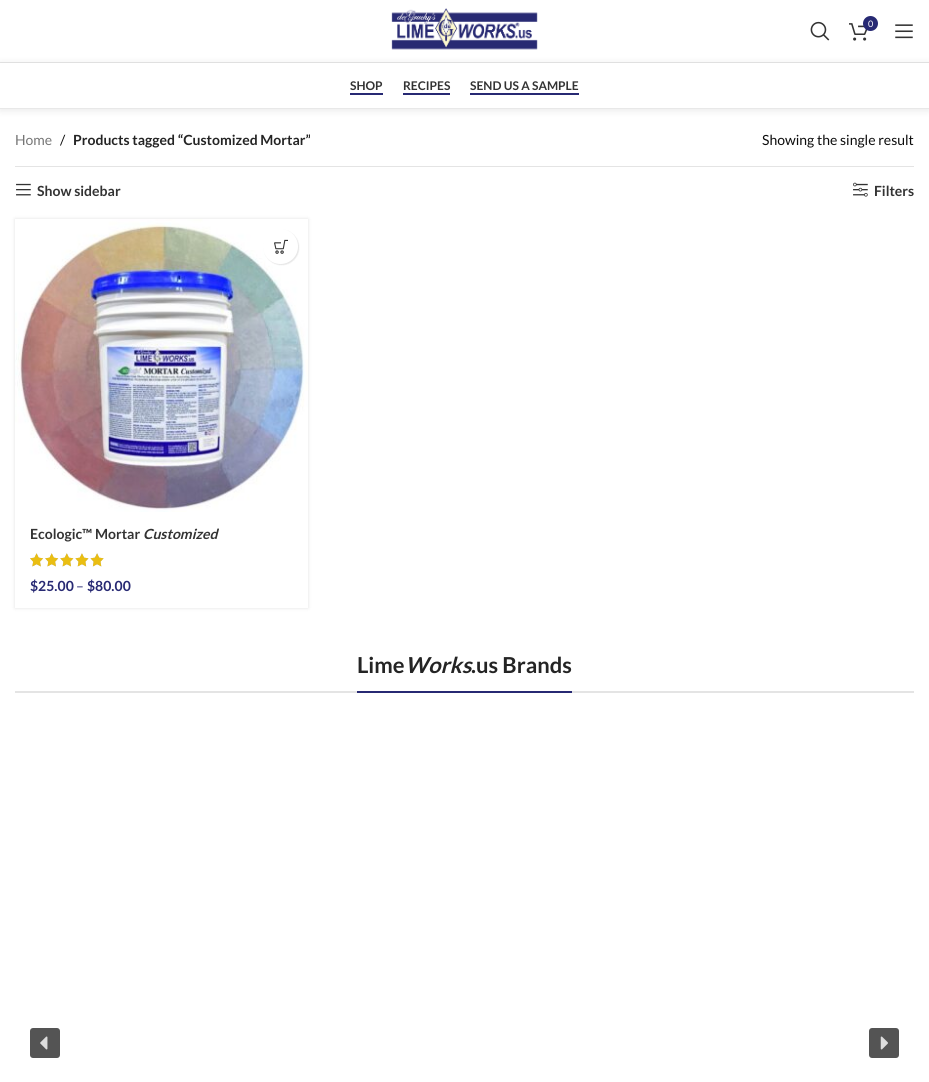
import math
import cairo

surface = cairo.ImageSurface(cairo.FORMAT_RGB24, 929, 1082)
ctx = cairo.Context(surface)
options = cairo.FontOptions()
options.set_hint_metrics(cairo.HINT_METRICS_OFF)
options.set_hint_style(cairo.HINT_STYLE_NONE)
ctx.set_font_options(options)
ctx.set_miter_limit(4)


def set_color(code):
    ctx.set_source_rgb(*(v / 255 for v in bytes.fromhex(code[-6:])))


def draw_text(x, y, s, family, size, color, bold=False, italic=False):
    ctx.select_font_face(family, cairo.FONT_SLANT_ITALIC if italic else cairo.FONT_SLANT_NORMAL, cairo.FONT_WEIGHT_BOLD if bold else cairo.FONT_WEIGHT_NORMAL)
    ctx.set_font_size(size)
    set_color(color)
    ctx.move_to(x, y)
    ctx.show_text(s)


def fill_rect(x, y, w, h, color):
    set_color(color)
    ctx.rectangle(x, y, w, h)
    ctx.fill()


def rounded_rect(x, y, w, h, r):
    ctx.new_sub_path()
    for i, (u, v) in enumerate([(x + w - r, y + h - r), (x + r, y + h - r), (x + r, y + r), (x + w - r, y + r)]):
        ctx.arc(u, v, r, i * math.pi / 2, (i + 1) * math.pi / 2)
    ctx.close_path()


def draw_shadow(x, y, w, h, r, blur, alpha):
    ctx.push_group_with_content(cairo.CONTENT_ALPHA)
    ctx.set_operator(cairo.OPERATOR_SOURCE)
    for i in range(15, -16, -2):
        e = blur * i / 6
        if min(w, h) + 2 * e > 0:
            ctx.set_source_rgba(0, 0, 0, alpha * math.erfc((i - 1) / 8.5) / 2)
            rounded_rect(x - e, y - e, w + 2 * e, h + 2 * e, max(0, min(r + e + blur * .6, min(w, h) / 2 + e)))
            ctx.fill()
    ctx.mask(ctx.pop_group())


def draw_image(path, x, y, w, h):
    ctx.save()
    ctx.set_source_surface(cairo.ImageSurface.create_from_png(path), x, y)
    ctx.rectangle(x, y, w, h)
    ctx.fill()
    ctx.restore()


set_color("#ffffff")
ctx.paint()
fill_rect(0, 62, 929, 1, "#e8e8e8")
draw_image("assets/img1.png", 391, 8, 147, 42)
draw_image("assets/img2.png", 810, 21, 20, 20)
draw_image("assets/img3.png", 849, 23, 19, 18)
set_color("#272973")
ctx.arc(870.5, 23.5, 7.5, 0, 2 * math.pi)
ctx.fill()
draw_text(868, 27, "0", "Lato", 9, "#ffffff")
draw_image("assets/img4.png", 895, 24, 18, 15)
ctx.save()
ctx.set_fill_rule(cairo.FILL_RULE_EVEN_ODD)
ctx.new_path()
ctx.move_to(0, 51)
ctx.line_to(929, 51)
ctx.line_to(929, 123)
ctx.line_to(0, 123)
ctx.close_path()
ctx.move_to(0, 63)
ctx.line_to(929, 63)
ctx.line_to(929, 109)
ctx.line_to(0, 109)
ctx.close_path()
ctx.clip()
set_color("#000000")
draw_shadow(0, 64, 929, 46, 0, 4, 0.1)
ctx.restore()
fill_rect(0, 108, 929, 1, "#e8e8e8")
fill_rect(350, 93, 33, 2, "#272973")
draw_text(350, 90, "SHOP", "Lato", 12, "#333333", bold=True)
fill_rect(403, 93, 47, 2, "#272973")
draw_text(403, 90, "RECIPES", "Lato", 12, "#333333", bold=True)
fill_rect(470, 93, 109, 2, "#272973")
draw_text(470, 90, "SEND US A SAMPLE", "Lato", 12, "#333333", bold=True)
fill_rect(15, 166, 899, 1, "#e4e4e4")
draw_text(15, 145, "Home", "Lato", 14, "#767676")
draw_text(60, 145, "/", "Lato", 14, "#0c0c0c")
draw_text(73, 145, "Products tagged “Customized Mortar”", "Lato", 14, "#242424", bold=True)
draw_text(762, 145, "Showing the single result", "Lato", 14, "#0c0c0c")
draw_image("assets/img5.png", 16, 183, 15, 13)
draw_text(37, 196, "Show sidebar", "Lato", 14, "#333333", bold=True)
draw_image("assets/img6.png", 853, 182, 15, 15)
draw_text(874, 196, "Filters", "Lato", 14, "#333333", bold=True)
ctx.save()
ctx.set_fill_rule(cairo.FILL_RULE_EVEN_ODD)
ctx.new_path()
ctx.move_to(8, 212)
ctx.line_to(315, 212)
ctx.line_to(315, 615)
ctx.line_to(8, 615)
ctx.close_path()
ctx.move_to(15, 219)
ctx.line_to(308, 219)
ctx.line_to(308, 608)
ctx.line_to(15, 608)
ctx.close_path()
ctx.clip()
set_color("#000000")
draw_shadow(15, 219, 293, 389, 0, 2, 0.12)
ctx.restore()
draw_image("assets/img7.png", 15, 219, 293, 293)
set_color("#000000")
draw_shadow(264, 230, 35, 35, 17.5, 0.5, 0.1)
set_color("#ffffff")
ctx.arc(280.5, 246.5, 17.5, 0, 2 * math.pi)
ctx.fill()
draw_image("assets/img8.png", 274, 239, 14, 15)
draw_text(30, 539, "Ecologic™ Mortar", "Lato", 14, "#333333", bold=True)
draw_text(143, 539, "Customized", "Lato", 14, "#333333", bold=True, italic=True)
draw_image("assets/img9.png", 30, 553, 74, 14)
draw_image("assets/img10.png", 30, 553, 74, 14)
draw_text(30, 591, "$25.00", "Lato", 14, "#272973", bold=True)
draw_text(76, 591, "–", "Lato", 14, "#272973")
draw_text(87, 591, "$80.00", "Lato", 14, "#272973", bold=True)
fill_rect(15, 691, 899, 2, "#e4e4e4")
fill_rect(357, 691, 215, 2, "#272973")
draw_text(357, 673, "Lime", "Lato", 22, "#242424", bold=True)
draw_text(405, 673, "Works", "Lato", 22, "#242424", bold=True, italic=True)
draw_text(471, 673, ".us Brands", "Lato", 22, "#242424", bold=True)
set_color("#545454")
rounded_rect(30, 1028, 30, 30, 3)
ctx.fill()
draw_image("assets/img11.png", 40, 1036, 8, 14)
rounded_rect(869, 1028, 30, 30, 3)
ctx.fill()
draw_image("assets/img12.png", 880, 1036, 8, 14)
surface.write_to_png("output.png")
